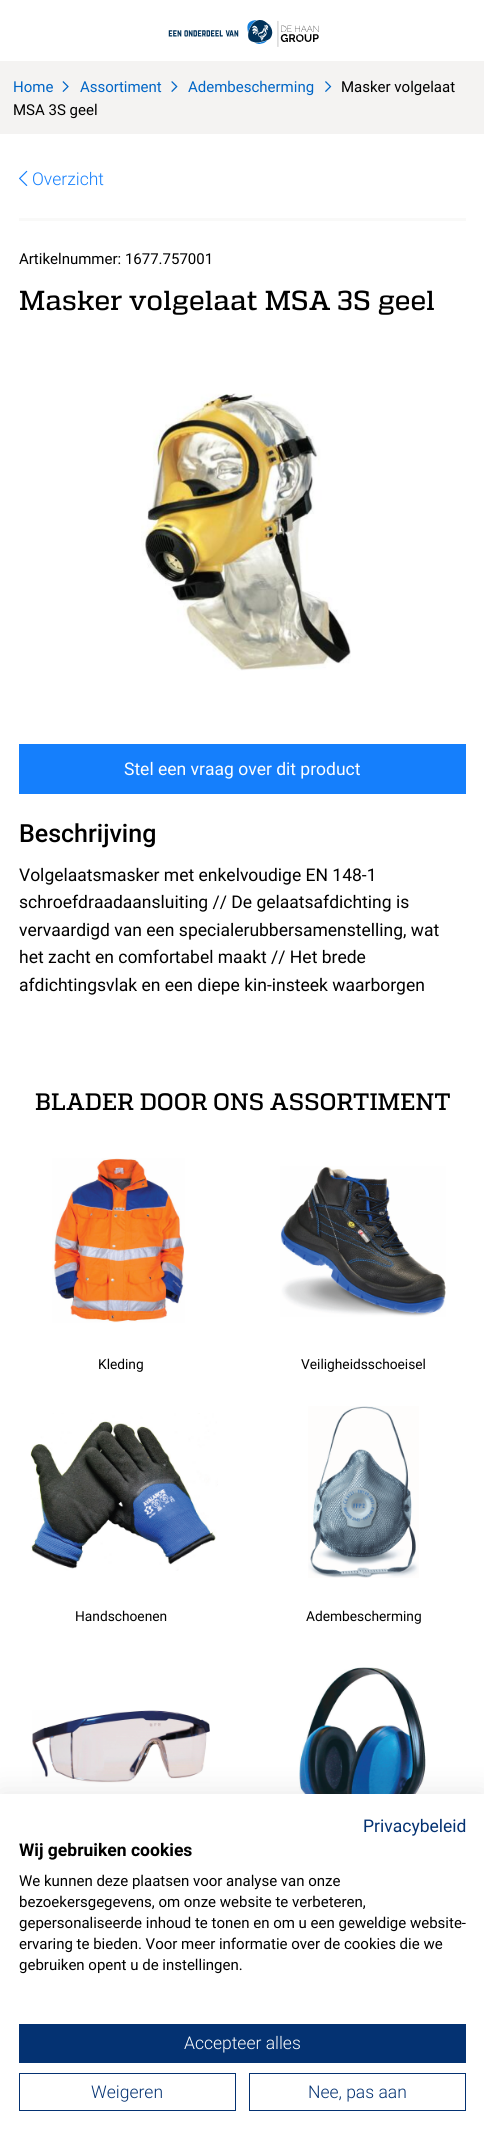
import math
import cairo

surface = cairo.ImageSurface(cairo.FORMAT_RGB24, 484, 2145)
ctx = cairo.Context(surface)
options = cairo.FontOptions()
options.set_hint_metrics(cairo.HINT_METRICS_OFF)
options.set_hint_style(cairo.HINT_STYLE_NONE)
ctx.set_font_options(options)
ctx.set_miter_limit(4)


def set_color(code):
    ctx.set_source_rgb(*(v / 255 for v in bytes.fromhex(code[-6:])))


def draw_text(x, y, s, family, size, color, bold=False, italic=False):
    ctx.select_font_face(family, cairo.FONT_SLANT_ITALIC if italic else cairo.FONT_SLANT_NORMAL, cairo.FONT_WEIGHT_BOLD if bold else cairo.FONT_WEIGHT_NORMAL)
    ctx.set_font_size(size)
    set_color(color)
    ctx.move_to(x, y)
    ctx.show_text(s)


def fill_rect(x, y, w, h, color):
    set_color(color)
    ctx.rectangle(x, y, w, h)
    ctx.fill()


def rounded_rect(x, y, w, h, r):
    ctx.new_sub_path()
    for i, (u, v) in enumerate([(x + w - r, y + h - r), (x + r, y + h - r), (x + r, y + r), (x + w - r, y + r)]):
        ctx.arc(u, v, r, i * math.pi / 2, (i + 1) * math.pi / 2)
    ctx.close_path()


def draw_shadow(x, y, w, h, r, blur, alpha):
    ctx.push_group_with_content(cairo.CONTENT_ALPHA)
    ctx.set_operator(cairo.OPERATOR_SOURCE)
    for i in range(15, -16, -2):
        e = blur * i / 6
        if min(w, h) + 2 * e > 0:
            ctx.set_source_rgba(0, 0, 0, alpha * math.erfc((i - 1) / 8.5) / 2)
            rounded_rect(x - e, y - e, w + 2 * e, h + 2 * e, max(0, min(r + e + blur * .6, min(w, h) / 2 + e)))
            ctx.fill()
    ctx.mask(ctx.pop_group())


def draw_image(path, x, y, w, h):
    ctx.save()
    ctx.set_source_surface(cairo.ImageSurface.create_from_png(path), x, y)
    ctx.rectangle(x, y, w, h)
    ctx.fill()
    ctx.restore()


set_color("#ffffff")
ctx.paint()
draw_image("assets/img1.png", 168, 20, 151, 27)
fill_rect(0, 61, 484, 73, "#f4f3f2")
draw_text(13, 92, "Home", "Roboto", 15, "#0065c6")
draw_image("assets/img2.png", 62, 81, 7, 11)
draw_text(80, 92, "Assortiment", "Roboto", 15, "#0065c6")
draw_image("assets/img3.png", 171, 81, 7, 11)
draw_text(188, 92, "Adembescherming", "Roboto", 15, "#0065c6")
draw_image("assets/img4.png", 325, 81, 7, 11)
draw_text(341, 92, "Masker volgelaat", "Roboto", 15, "#000000")
draw_text(13, 115, "MSA 3S geel", "Roboto", 15, "#000000")
fill_rect(19, 218, 447, 3, "#f9f9f8")
draw_image("assets/img5.png", 19, 170, 9, 16)
draw_text(32, 185, "Overzicht", "Roboto Light", 17.5, "#157ffc")
draw_text(19, 264, "Artikelnummer: 1677.757001", "Roboto", 15, "#000000")
draw_text(19, 310, "Masker volgelaat MSA 3S geel", "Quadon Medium", 27.5, "#000000")
draw_image("assets/img6.png", 141, 393, 210, 278)
fill_rect(19, 744, 447, 50, "#157ffc")
draw_text(124, 775, "Stel een vraag over dit product", "Roboto", 17.5, "#ffffff")
draw_text(19, 842, "Beschrijving", "Roboto Medium", 25, "#000000")
draw_text(19, 881, "Volgelaatsmasker met enkelvoudige EN 148-1", "Roboto", 17.5, "#000000")
draw_text(19, 908, "schroefdraadaansluiting // De gelaatsafdichting is", "Roboto", 17.5, "#000000")
draw_text(19, 936, "vervaardigd van een specialerubbersamenstelling, wat", "Roboto", 17.5, "#000000")
draw_text(19, 963, "het zacht en comfortabel maakt // Het brede", "Roboto", 17.5, "#000000")
draw_text(19, 991, "afdichtingsvlak en een diepe kin-insteek waarborgen", "Roboto", 17.5, "#000000")
draw_text(35, 1110, "BLADER DOOR ONS ASSORTIMENT", "Quadon Medium", 23.75, "#000000")
draw_image("assets/img7.png", 52, 1158, 133, 165)
draw_text(98, 1369, "Kleding", "Roboto", 13.75, "#000000")
draw_image("assets/img8.png", 280, 1166, 166, 151)
draw_text(301, 1369, "Veiligheidsschoeisel", "Roboto", 13.75, "#000000")
draw_image("assets/img9.png", 30, 1413, 188, 158)
draw_text(75, 1621, "Handschoenen", "Roboto", 13.75, "#000000")
draw_image("assets/img10.png", 308, 1406, 111, 172)
draw_text(306, 1621, "Adembescherming", "Roboto", 13.75, "#000000")
draw_image("assets/img11.png", 32, 1710, 178, 73)
draw_image("assets/img12.png", 299, 1667, 127, 127)
set_color("#000000")
draw_shadow(0, 1794, 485, 351, 0, 15, 0.1)
fill_rect(0, 1794, 484, 351, "#ffffff")
draw_text(363, 1832, "Privacybeleid", "Roboto", 17.5, "#043272")
draw_text(19, 1856, "Wij gebruiken cookies", "Roboto", 17.5, "#000000", bold=True)
draw_text(19, 1886, "We kunnen deze plaatsen voor analyse van onze", "Roboto", 15, "#000000")
draw_text(19, 1907, "bezoekersgegevens, om onze website te verbeteren,", "Roboto", 15, "#000000")
draw_text(19, 1928, "gepersonaliseerde inhoud te tonen en om u een geweldige website-", "Roboto", 15, "#000000")
draw_text(19, 1949, "ervaring te bieden. Voor meer informatie over de cookies die we", "Roboto", 15, "#000000")
draw_text(19, 1970, "gebruiken opent u de instellingen.", "Roboto", 15, "#000000")
fill_rect(19, 2024, 447, 39, "#043272")
draw_text(184, 2049, "Accepteer alles", "Roboto Light", 17.5, "#ffffff")
ctx.rectangle(19.5, 2073.5, 216, 37)
set_color("#043272")
ctx.set_line_width(1)
ctx.stroke()
draw_text(91, 2098, "Weigeren", "Roboto Light", 17.5, "#043272")
ctx.rectangle(249.5, 2073.5, 216, 37)
ctx.stroke()
draw_text(308, 2098, "Nee, pas aan", "Roboto Light", 17.5, "#043272")
surface.write_to_png("output.png")
